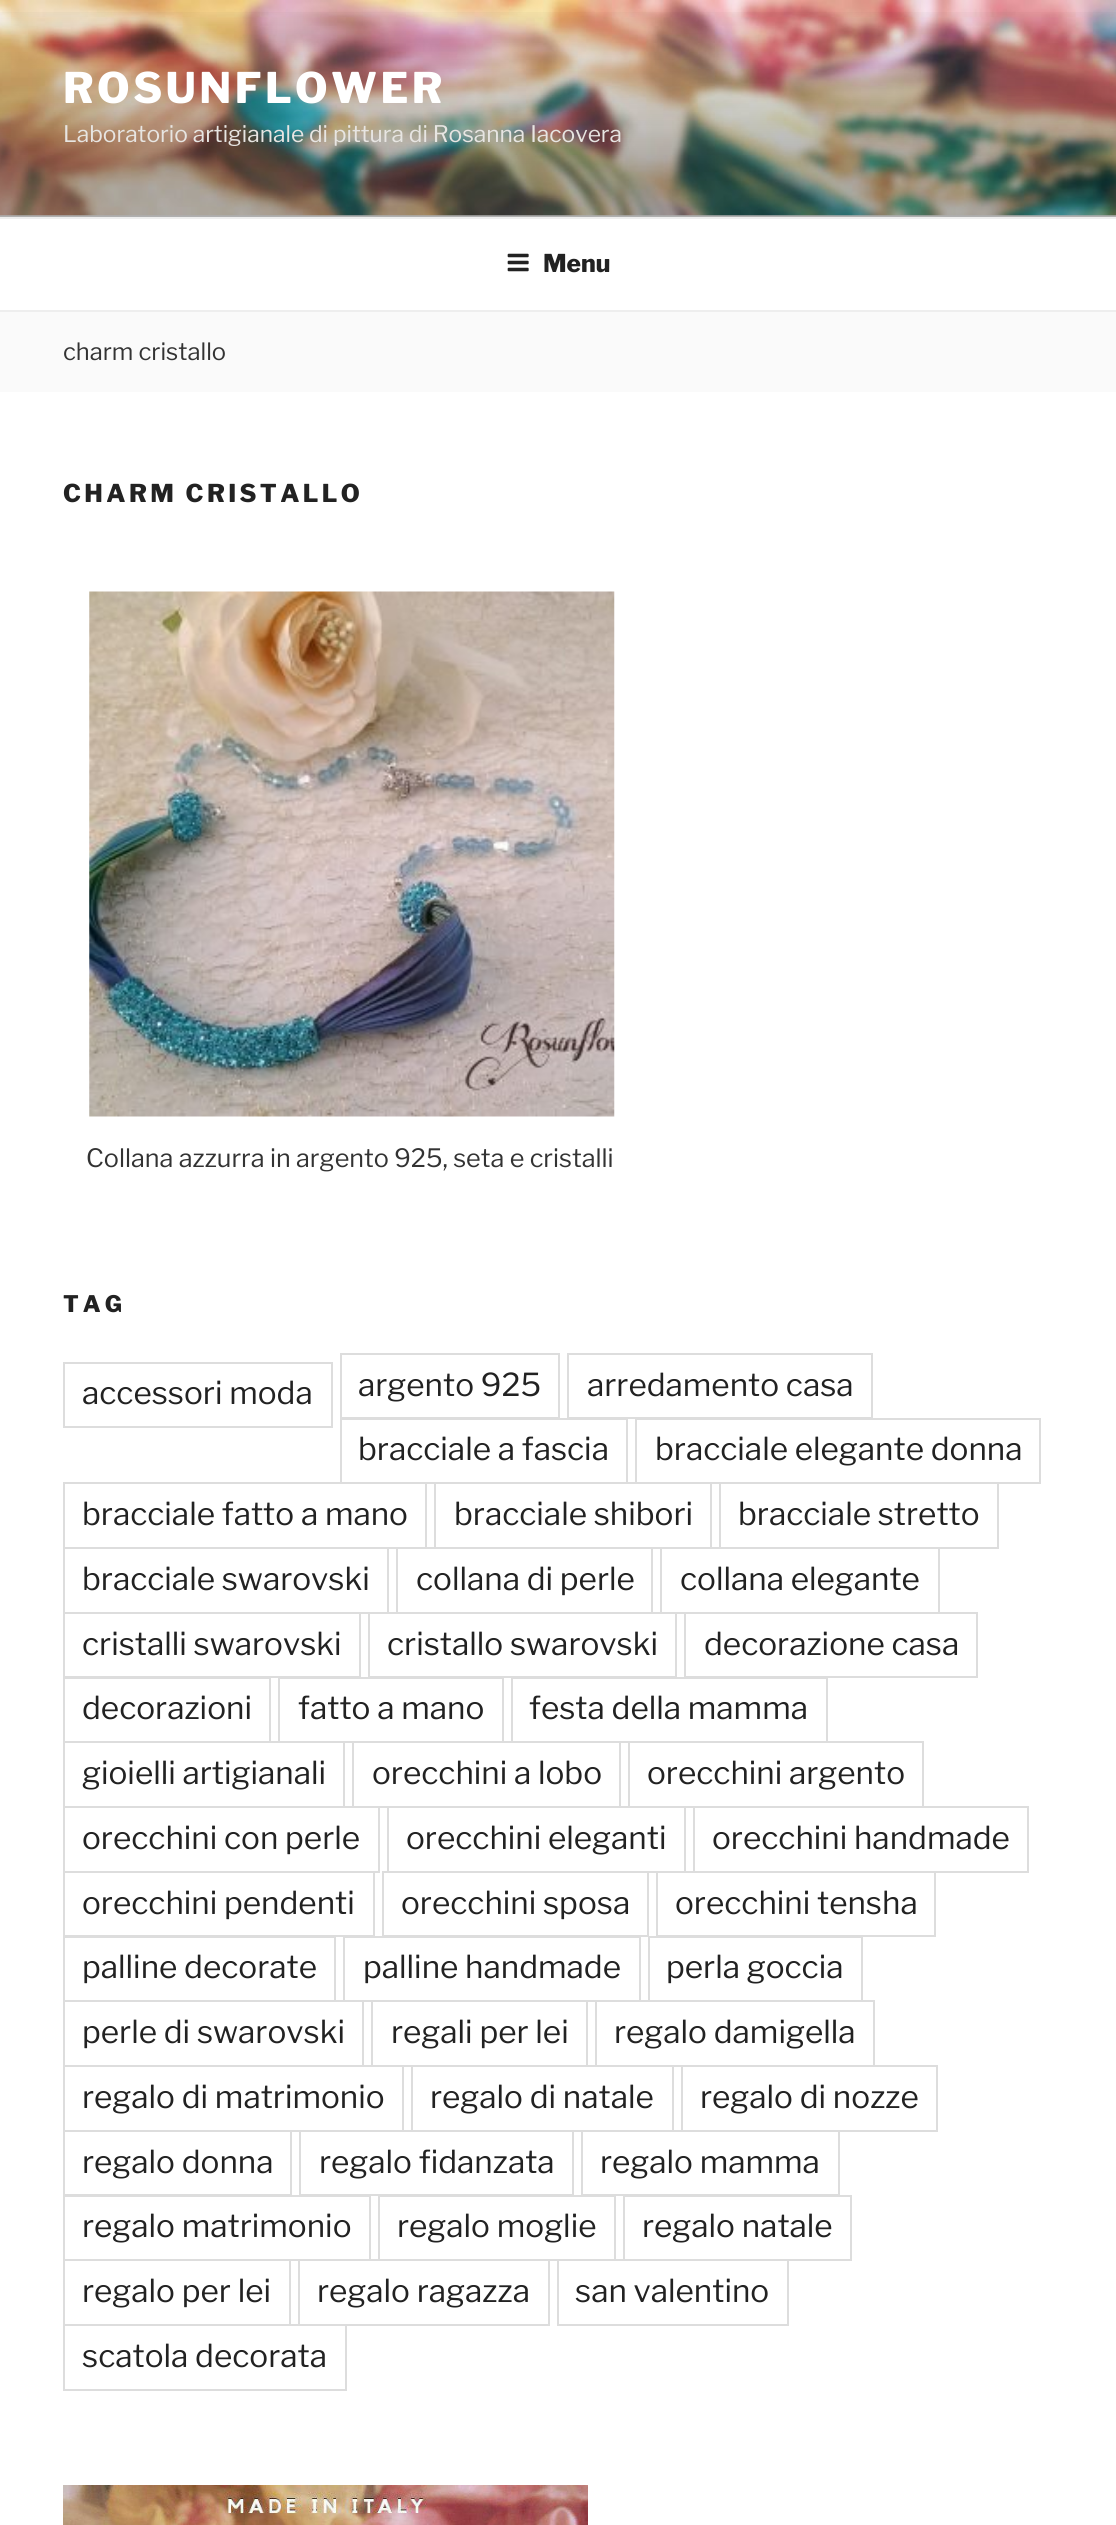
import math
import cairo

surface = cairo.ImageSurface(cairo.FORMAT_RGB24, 1116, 2525)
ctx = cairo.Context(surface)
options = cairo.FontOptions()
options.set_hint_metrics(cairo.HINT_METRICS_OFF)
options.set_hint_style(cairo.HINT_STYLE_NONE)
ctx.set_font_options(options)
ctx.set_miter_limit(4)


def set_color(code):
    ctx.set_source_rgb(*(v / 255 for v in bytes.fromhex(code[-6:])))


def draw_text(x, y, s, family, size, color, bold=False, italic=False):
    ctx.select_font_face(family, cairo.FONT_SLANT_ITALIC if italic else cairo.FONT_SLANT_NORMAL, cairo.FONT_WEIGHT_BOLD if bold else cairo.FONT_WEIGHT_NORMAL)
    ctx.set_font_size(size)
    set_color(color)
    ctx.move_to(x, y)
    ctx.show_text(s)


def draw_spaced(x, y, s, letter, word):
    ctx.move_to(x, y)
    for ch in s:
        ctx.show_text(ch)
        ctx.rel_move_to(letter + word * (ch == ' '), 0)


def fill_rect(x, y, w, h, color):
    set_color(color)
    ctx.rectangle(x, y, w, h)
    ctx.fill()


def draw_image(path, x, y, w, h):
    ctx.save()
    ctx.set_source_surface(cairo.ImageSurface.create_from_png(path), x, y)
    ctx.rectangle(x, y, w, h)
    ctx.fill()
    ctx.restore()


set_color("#ffffff")
ctx.paint()
fill_rect(0, 215, 1116, 2, "#fafafa")
draw_image("assets/img1.png", 0, 0, 1116, 216)
gradient = cairo.LinearGradient(558, 0, 558, 217)
gradient.add_color_stop_rgba(0, 0, 0, 0, 0)
gradient.add_color_stop_rgba(0.75, 0, 0, 0, 0.3)
gradient.add_color_stop_rgba(1, 0, 0, 0, 0.3)
ctx.set_source(gradient)
ctx.rectangle(0, 12, 1116, 205)
ctx.fill()
ctx.select_font_face("Libre Franklin ExtraBold")
ctx.set_font_size(42)
set_color("#ffffff")
draw_spaced(63, 103, "ROSUNFLOWER", 3.4, 0)
draw_text(63, 142, "Laboratorio artigianale di pittura di Rosanna Iacovera", "Libre Franklin", 22.75, "#e7e5e2")
fill_rect(0, 217, 1116, 2, "#eeeeee")
fill_rect(0, 310, 1116, 2, "#eeeeee")
draw_image("assets/img2.png", 507, 253, 22, 19)
draw_text(543, 272, "Menu", "Libre Franklin ExtraBold", 24.5, "#222222")
fill_rect(0, 312, 1116, 80, "#fafafa")
draw_text(63, 360, "charm cristallo", "Libre Franklin", 23.75, "#333333")
ctx.select_font_face("Libre Franklin ExtraBold")
ctx.set_font_size(24.5)
set_color("#222222")
draw_spaced(63, 502, "CHARM CRISTALLO", 3.4, 0)
draw_image("assets/img3.png", 89, 591, 526, 526)
draw_text(86, 1167, "Collana azzurra in argento 925, seta e cristalli", "Libre Franklin", 25.2, "#333333")
ctx.select_font_face("Libre Franklin ExtraBold")
ctx.set_font_size(22.75)
set_color("#222222")
draw_spaced(63, 1312, "TAG", 4, 0)
ctx.rectangle(64, 1363, 268, 64)
set_color("#dddddd")
ctx.stroke()
draw_text(82, 1404, "accessori moda", "Libre Franklin", 31.5, "#222222")
ctx.rectangle(341, 1354, 218, 64)
set_color("#dddddd")
ctx.stroke()
draw_text(358, 1396, "argento 925", "Libre Franklin", 31.5, "#222222")
ctx.rectangle(568, 1354, 304, 64)
set_color("#dddddd")
ctx.stroke()
draw_text(587, 1396, "arredamento casa", "Libre Franklin", 31.5, "#222222")
ctx.rectangle(341, 1419, 286, 64)
set_color("#dddddd")
ctx.stroke()
draw_text(358, 1460, "bracciale a fascia", "Libre Franklin", 31.5, "#222222")
ctx.rectangle(636, 1419, 404, 64)
set_color("#dddddd")
ctx.stroke()
draw_text(655, 1460, "bracciale elegante donna", "Libre Franklin", 31.5, "#222222")
ctx.rectangle(64, 1483, 362, 65)
set_color("#dddddd")
ctx.stroke()
draw_text(82, 1525, "bracciale fatto a mano", "Libre Franklin", 31.5, "#222222")
ctx.rectangle(435, 1483, 276, 65)
set_color("#dddddd")
ctx.stroke()
draw_text(454, 1525, "bracciale shibori", "Libre Franklin", 31.5, "#222222")
ctx.rectangle(720, 1483, 278, 65)
set_color("#dddddd")
ctx.stroke()
draw_text(738, 1525, "bracciale stretto", "Libre Franklin", 31.5, "#222222")
ctx.rectangle(64, 1548, 324, 65)
set_color("#dddddd")
ctx.stroke()
draw_text(82, 1590, "bracciale swarovski", "Libre Franklin", 31.5, "#222222")
ctx.rectangle(397, 1548, 255, 65)
set_color("#dddddd")
ctx.stroke()
draw_text(416, 1590, "collana di perle", "Libre Franklin", 31.5, "#222222")
ctx.rectangle(661, 1548, 278, 65)
set_color("#dddddd")
ctx.stroke()
draw_text(680, 1590, "collana elegante", "Libre Franklin", 31.5, "#222222")
ctx.rectangle(64, 1613, 296, 64)
set_color("#dddddd")
ctx.stroke()
draw_text(82, 1655, "cristalli swarovski", "Libre Franklin", 31.5, "#222222")
ctx.rectangle(369, 1613, 307, 64)
set_color("#dddddd")
ctx.stroke()
draw_text(387, 1655, "cristallo swarovski", "Libre Franklin", 31.5, "#222222")
ctx.rectangle(685, 1613, 292, 64)
set_color("#dddddd")
ctx.stroke()
draw_text(704, 1655, "decorazione casa", "Libre Franklin", 31.5, "#222222")
ctx.rectangle(64, 1678, 206, 64)
set_color("#dddddd")
ctx.stroke()
draw_text(82, 1719, "decorazioni", "Libre Franklin", 31.5, "#222222")
ctx.rectangle(279, 1678, 224, 64)
set_color("#dddddd")
ctx.stroke()
draw_text(298, 1719, "fatto a mano", "Libre Franklin", 31.5, "#222222")
ctx.rectangle(512, 1678, 315, 64)
set_color("#dddddd")
ctx.stroke()
draw_text(529, 1719, "festa della mamma", "Libre Franklin", 31.5, "#222222")
ctx.rectangle(64, 1742, 280, 65)
set_color("#dddddd")
ctx.stroke()
draw_text(82, 1784, "gioielli artigianali", "Libre Franklin", 31.5, "#222222")
ctx.rectangle(353, 1742, 267, 65)
set_color("#dddddd")
ctx.stroke()
draw_text(372, 1784, "orecchini a lobo", "Libre Franklin", 31.5, "#222222")
ctx.rectangle(629, 1742, 294, 65)
set_color("#dddddd")
ctx.stroke()
draw_text(647, 1784, "orecchini argento", "Libre Franklin", 31.5, "#222222")
ctx.rectangle(64, 1807, 315, 65)
set_color("#dddddd")
ctx.stroke()
draw_text(82, 1849, "orecchini con perle", "Libre Franklin", 31.5, "#222222")
ctx.rectangle(388, 1807, 297, 65)
set_color("#dddddd")
ctx.stroke()
draw_text(406, 1849, "orecchini eleganti", "Libre Franklin", 31.5, "#222222")
ctx.rectangle(694, 1807, 334, 65)
set_color("#dddddd")
ctx.stroke()
draw_text(712, 1849, "orecchini handmade", "Libre Franklin", 31.5, "#222222")
ctx.rectangle(64, 1872, 310, 64)
set_color("#dddddd")
ctx.stroke()
draw_text(82, 1914, "orecchini pendenti", "Libre Franklin", 31.5, "#222222")
ctx.rectangle(383, 1872, 265, 64)
set_color("#dddddd")
ctx.stroke()
draw_text(401, 1914, "orecchini sposa", "Libre Franklin", 31.5, "#222222")
ctx.rectangle(657, 1872, 278, 64)
set_color("#dddddd")
ctx.stroke()
draw_text(675, 1914, "orecchini tensha", "Libre Franklin", 31.5, "#222222")
ctx.rectangle(64, 1937, 271, 64)
set_color("#dddddd")
ctx.stroke()
draw_text(82, 1978, "palline decorate", "Libre Franklin", 31.5, "#222222")
ctx.rectangle(344, 1937, 296, 64)
set_color("#dddddd")
ctx.stroke()
draw_text(363, 1978, "palline handmade", "Libre Franklin", 31.5, "#222222")
ctx.rectangle(649, 1937, 213, 64)
set_color("#dddddd")
ctx.stroke()
draw_text(666, 1978, "perla goccia", "Libre Franklin", 31.5, "#222222")
ctx.rectangle(64, 2001, 299, 65)
set_color("#dddddd")
ctx.stroke()
draw_text(82, 2043, "perle di swarovski", "Libre Franklin", 31.5, "#222222")
ctx.rectangle(372, 2001, 215, 65)
set_color("#dddddd")
ctx.stroke()
draw_text(391, 2043, "regali per lei", "Libre Franklin", 31.5, "#222222")
ctx.rectangle(596, 2001, 278, 65)
set_color("#dddddd")
ctx.stroke()
draw_text(614, 2043, "regalo damigella", "Libre Franklin", 31.5, "#222222")
ctx.rectangle(64, 2066, 339, 65)
set_color("#dddddd")
ctx.stroke()
draw_text(82, 2108, "regalo di matrimonio", "Libre Franklin", 31.5, "#222222")
ctx.rectangle(412, 2066, 261, 65)
set_color("#dddddd")
ctx.stroke()
draw_text(430, 2108, "regalo di natale", "Libre Franklin", 31.5, "#222222")
ctx.rectangle(682, 2066, 255, 65)
set_color("#dddddd")
ctx.stroke()
draw_text(700, 2108, "regalo di nozze", "Libre Franklin", 31.5, "#222222")
ctx.rectangle(64, 2131, 227, 64)
set_color("#dddddd")
ctx.stroke()
draw_text(82, 2173, "regalo donna", "Libre Franklin", 31.5, "#222222")
ctx.rectangle(300, 2131, 273, 64)
set_color("#dddddd")
ctx.stroke()
draw_text(319, 2173, "regalo fidanzata", "Libre Franklin", 31.5, "#222222")
ctx.rectangle(582, 2131, 257, 64)
set_color("#dddddd")
ctx.stroke()
draw_text(600, 2173, "regalo mamma", "Libre Franklin", 31.5, "#222222")
ctx.rectangle(64, 2196, 306, 64)
set_color("#dddddd")
ctx.stroke()
draw_text(82, 2237, "regalo matrimonio", "Libre Franklin", 31.5, "#222222")
ctx.rectangle(379, 2196, 236, 64)
set_color("#dddddd")
ctx.stroke()
draw_text(397, 2237, "regalo moglie", "Libre Franklin", 31.5, "#222222")
ctx.rectangle(624, 2196, 227, 64)
set_color("#dddddd")
ctx.stroke()
draw_text(642, 2237, "regalo natale", "Libre Franklin", 31.5, "#222222")
ctx.rectangle(64, 2260, 226, 65)
set_color("#dddddd")
ctx.stroke()
draw_text(82, 2302, "regalo per lei", "Libre Franklin", 31.5, "#222222")
ctx.rectangle(299, 2260, 250, 65)
set_color("#dddddd")
ctx.stroke()
draw_text(317, 2302, "regalo ragazza", "Libre Franklin", 31.5, "#222222")
ctx.rectangle(558, 2260, 230, 65)
set_color("#dddddd")
ctx.stroke()
draw_text(575, 2302, "san valentino", "Libre Franklin", 31.5, "#222222")
ctx.rectangle(64, 2325, 282, 65)
set_color("#dddddd")
ctx.stroke()
draw_text(82, 2367, "scatola decorata", "Libre Franklin", 31.5, "#222222")
draw_image("assets/img4.png", 63, 2485, 525, 40)
surface.write_to_png("output.png")
